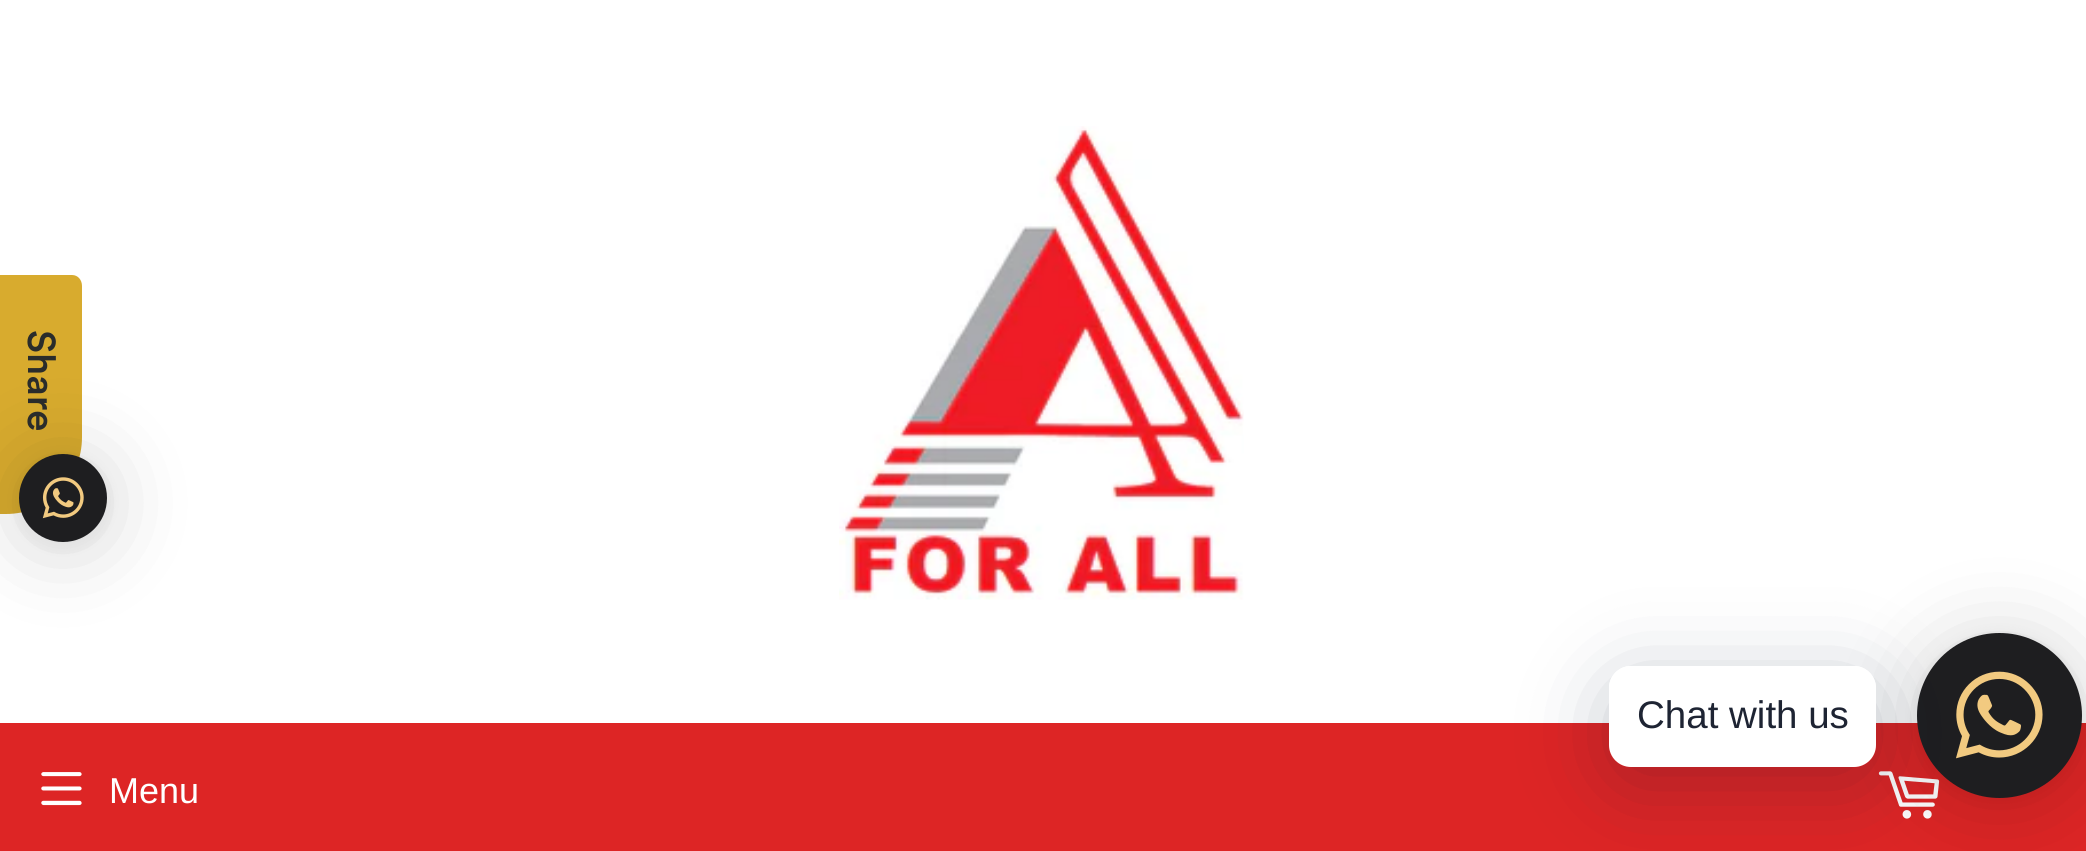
import math
import cairo

surface = cairo.ImageSurface(cairo.FORMAT_RGB24, 2086, 851)
ctx = cairo.Context(surface)
options = cairo.FontOptions()
options.set_hint_metrics(cairo.HINT_METRICS_OFF)
options.set_hint_style(cairo.HINT_STYLE_NONE)
ctx.set_font_options(options)
ctx.set_miter_limit(4)


def set_color(code):
    ctx.set_source_rgb(*(v / 255 for v in bytes.fromhex(code[-6:])))


def draw_text(x, y, s, family, size, color, bold=False, italic=False):
    ctx.select_font_face(family, cairo.FONT_SLANT_ITALIC if italic else cairo.FONT_SLANT_NORMAL, cairo.FONT_WEIGHT_BOLD if bold else cairo.FONT_WEIGHT_NORMAL)
    ctx.set_font_size(size)
    set_color(color)
    ctx.move_to(x, y)
    ctx.show_text(s)


def fill_rect(x, y, w, h, color):
    set_color(color)
    ctx.rectangle(x, y, w, h)
    ctx.fill()


def rounded_rect(x, y, w, h, r):
    ctx.new_sub_path()
    for i, (u, v) in enumerate([(x + w - r, y + h - r), (x + r, y + h - r), (x + r, y + r), (x + w - r, y + r)]):
        ctx.arc(u, v, r, i * math.pi / 2, (i + 1) * math.pi / 2)
    ctx.close_path()


def draw_shadow(x, y, w, h, r, blur, alpha):
    ctx.push_group_with_content(cairo.CONTENT_ALPHA)
    ctx.set_operator(cairo.OPERATOR_SOURCE)
    for i in range(15, -16, -2):
        e = blur * i / 6
        if min(w, h) + 2 * e > 0:
            ctx.set_source_rgba(0, 0, 0, alpha * math.erfc((i - 1) / 8.5) / 2)
            rounded_rect(x - e, y - e, w + 2 * e, h + 2 * e, max(0, min(r + e + blur * .6, min(w, h) / 2 + e)))
            ctx.fill()
    ctx.mask(ctx.pop_group())


def draw_image(path, x, y, w, h):
    ctx.save()
    ctx.set_source_surface(cairo.ImageSurface.create_from_png(path), x, y)
    ctx.rectangle(x, y, w, h)
    ctx.fill()
    ctx.restore()


set_color("#ffffff")
ctx.paint()
set_color("#d8ab2e")
ctx.new_path()
ctx.move_to(0, 514)
ctx.line_to(0, 275)
ctx.line_to(72, 275)
ctx.curve_to(78, 275, 82, 280, 82, 286)
ctx.line_to(82, 437)
ctx.curve_to(82, 480, 48, 514, 6, 514)
ctx.close_path()
ctx.fill()
set_color("#000000")
draw_shadow(19, 459, 88, 88, 44, 44, 0.16)
draw_shadow(19, 457, 88, 88, 44, 8, 0.06)
set_color("#1e1e20")
ctx.arc(63, 498, 44, 0, 2 * math.pi)
ctx.fill()
draw_image("assets/img1.png", 42, 477, 42, 42)
ctx.save()
ctx.translate(28, 330)
ctx.rotate(90 * math.pi / 180)
draw_text(0, 0, "Share", "Circular Medium", 38.5, "#2a2c2b")
ctx.restore()
fill_rect(0, 723, 2086, 128, "#dd2525")
draw_image("assets/img5.png", 1878, 771, 62, 48)
set_color("#000000")
draw_shadow(1917, 638, 165, 165, 82.5, 44, 0.16)
draw_shadow(1917, 635, 165, 165, 82.5, 8, 0.06)
set_color("#1e1e20")
ctx.arc(1999.5, 715.5, 82.5, 0, 2 * math.pi)
ctx.fill()
ctx.save()
ctx.set_fill_rule(cairo.FILL_RULE_EVEN_ODD)
ctx.new_path()
ctx.move_to(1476, 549)
ctx.line_to(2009, 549)
ctx.line_to(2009, 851)
ctx.line_to(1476, 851)
ctx.close_path()
ctx.move_to(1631, 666)
ctx.line_to(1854, 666)
ctx.curve_to(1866, 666, 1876, 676, 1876, 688)
ctx.line_to(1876, 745)
ctx.curve_to(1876, 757, 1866, 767, 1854, 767)
ctx.line_to(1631, 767)
ctx.curve_to(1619, 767, 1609, 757, 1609, 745)
ctx.line_to(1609, 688)
ctx.curve_to(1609, 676, 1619, 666, 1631, 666)
ctx.close_path()
ctx.clip()
set_color("#00122e")
draw_shadow(1609, 682, 267, 102, 22, 44, 0.24)
ctx.restore()
set_color("#ffffff")
rounded_rect(1609, 666, 267, 101, 22)
ctx.fill()
draw_text(1637, 728, "Chat with us", "Liberation Sans", 38.5, "#1e2433")
draw_image("assets/img2.png", 1956, 671, 87, 88)
draw_image("assets/img3.png", 839, 126, 405, 474)
draw_image("assets/img4.png", 41, 772, 41, 34)
draw_text(109, 803, "Menu", "Liberation Sans", 36, "#ffffff")
surface.write_to_png("output.png")
